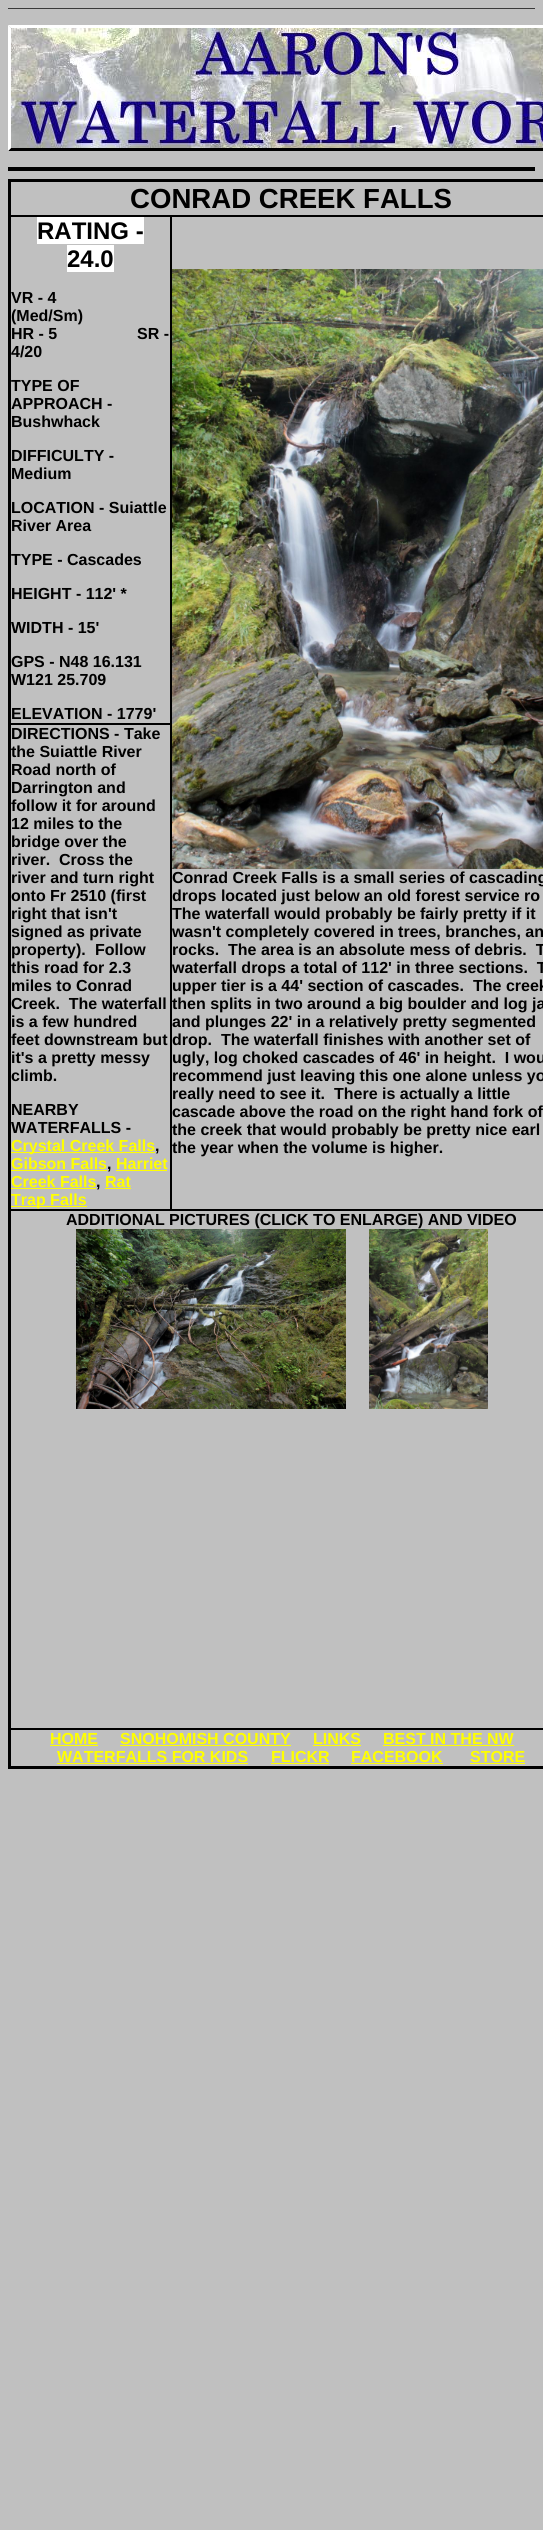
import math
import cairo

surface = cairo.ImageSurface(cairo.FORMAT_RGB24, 543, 2530)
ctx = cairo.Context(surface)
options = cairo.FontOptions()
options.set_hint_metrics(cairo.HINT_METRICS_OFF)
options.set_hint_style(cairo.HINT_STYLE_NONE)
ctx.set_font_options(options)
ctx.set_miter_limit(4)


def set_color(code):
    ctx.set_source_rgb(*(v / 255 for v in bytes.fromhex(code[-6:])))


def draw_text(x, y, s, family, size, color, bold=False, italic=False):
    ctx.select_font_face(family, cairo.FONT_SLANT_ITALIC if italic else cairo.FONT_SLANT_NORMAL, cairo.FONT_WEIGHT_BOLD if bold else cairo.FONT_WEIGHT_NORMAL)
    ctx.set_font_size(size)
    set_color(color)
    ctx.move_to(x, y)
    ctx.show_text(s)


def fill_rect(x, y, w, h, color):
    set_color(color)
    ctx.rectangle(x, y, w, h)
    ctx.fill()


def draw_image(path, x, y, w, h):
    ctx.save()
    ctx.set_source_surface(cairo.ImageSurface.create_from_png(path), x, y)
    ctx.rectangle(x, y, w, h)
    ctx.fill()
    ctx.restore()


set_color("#c0c0c0")
ctx.paint()
fill_rect(8, 8, 527, 1, "#393939")
set_color("#ffffff")
ctx.new_path()
ctx.move_to(8, 25)
ctx.line_to(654, 25)
ctx.line_to(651, 28)
ctx.line_to(11, 28)
ctx.close_path()
ctx.fill()
set_color("#000000")
ctx.new_path()
ctx.move_to(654, 151)
ctx.line_to(8, 151)
ctx.line_to(11, 148)
ctx.line_to(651, 148)
ctx.close_path()
ctx.fill()
set_color("#ffffff")
ctx.new_path()
ctx.move_to(8, 151)
ctx.line_to(8, 25)
ctx.line_to(11, 28)
ctx.line_to(11, 148)
ctx.close_path()
ctx.fill()
draw_image("assets/img1.png", 11, 28, 532, 120)
fill_rect(8, 167, 527, 4, "#000000")
ctx.rectangle(9, 180, 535, 1588)
ctx.stroke()
ctx.rectangle(10.5, 181.5, 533, 34)
ctx.set_line_width(1)
ctx.stroke()
draw_text(130, 208, "CONRAD CREEK FALLS", "Liberation Sans", 27.6, "#000000", bold=True)
ctx.rectangle(10.5, 216.5, 160, 507)
ctx.stroke()
fill_rect(37, 217, 107, 27, "#ffffff")
draw_text(37, 239, "RATING -", "Liberation Sans", 24, "#000000", bold=True)
fill_rect(67, 245, 47, 27, "#ffffff")
draw_text(67, 267, "24.0", "Liberation Sans", 24, "#000000", bold=True)
draw_text(11, 303, "VR - 4", "Liberation Sans", 16, "#000000", bold=True)
draw_text(11, 321, "(Med/Sm)", "Liberation Sans", 16, "#000000", bold=True)
draw_text(11, 339, "HR - 5", "Liberation Sans", 16, "#000000", bold=True)
draw_text(137, 339, "SR -", "Liberation Sans", 16, "#000000", bold=True)
draw_text(11, 357, "4/20", "Liberation Sans", 16, "#000000", bold=True)
draw_text(11, 391, "TYPE OF", "Liberation Sans", 16, "#000000", bold=True)
draw_text(11, 409, "APPROACH -", "Liberation Sans", 16, "#000000", bold=True)
draw_text(11, 427, "Bushwhack", "Liberation Sans", 16, "#000000", bold=True)
draw_text(11, 461, "DIFFICULTY -", "Liberation Sans", 16, "#000000", bold=True)
draw_text(11, 479, "Medium", "Liberation Sans", 16, "#000000", bold=True)
draw_text(11, 513, "LOCATION - Suiattle", "Liberation Sans", 16, "#000000", bold=True)
draw_text(11, 531, "River Area", "Liberation Sans", 16, "#000000", bold=True)
draw_text(11, 565, "TYPE - Cascades", "Liberation Sans", 16, "#000000", bold=True)
draw_text(11, 599, "HEIGHT - 112' *", "Liberation Sans", 16, "#000000", bold=True)
draw_text(11, 633, "WIDTH - 15'", "Liberation Sans", 16, "#000000", bold=True)
draw_text(11, 667, "GPS - N48 16.131", "Liberation Sans", 16, "#000000", bold=True)
draw_text(11, 685, "W121 25.709", "Liberation Sans", 16, "#000000", bold=True)
draw_text(11, 719, "ELEVATION - 1779'", "Liberation Sans", 16, "#000000", bold=True)
ctx.rectangle(171.5, 216.5, 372, 993)
ctx.stroke()
draw_image("assets/img2.png", 172, 269, 371, 600)
draw_text(172, 883, "Conrad Creek Falls is a small series of cascading", "Liberation Sans", 16, "#000000", bold=True)
draw_text(172, 901, "drops located just below an old forest service ro", "Liberation Sans", 16, "#000000", bold=True)
draw_text(172, 919, "The waterfall would probably be fairly pretty if it", "Liberation Sans", 16, "#000000", bold=True)
draw_text(172, 937, "wasn't completely covered in trees, branches, an", "Liberation Sans", 16, "#000000", bold=True)
draw_text(172, 955, "rocks.", "Liberation Sans", 16, "#000000", bold=True)
draw_text(228, 955, "The area is an absolute mess of debris.  T", "Liberation Sans", 16, "#000000", bold=True)
draw_text(172, 973, "waterfall drops a total of 112' in three sections.  T", "Liberation Sans", 16, "#000000", bold=True)
draw_text(172, 991, "upper tier is a 44' section of cascades.", "Liberation Sans", 16, "#000000", bold=True)
draw_text(473, 991, "The creek", "Liberation Sans", 16, "#000000", bold=True)
draw_text(172, 1009, "then splits in two around a big boulder and log ja", "Liberation Sans", 16, "#000000", bold=True)
draw_text(172, 1027, "and plunges 22' in a relatively pretty segmented", "Liberation Sans", 16, "#000000", bold=True)
draw_text(172, 1045, "drop.  The waterfall finishes with another set of", "Liberation Sans", 16, "#000000", bold=True)
draw_text(172, 1063, "ugly, log choked cascades of 46' in height.  I wou", "Liberation Sans", 16, "#000000", bold=True)
draw_text(172, 1081, "recommend just leaving this one alone unless yo", "Liberation Sans", 16, "#000000", bold=True)
draw_text(172, 1099, "really need to see it.", "Liberation Sans", 16, "#000000", bold=True)
draw_text(334, 1099, "There is actually a little", "Liberation Sans", 16, "#000000", bold=True)
draw_text(172, 1117, "cascade above the road on the right hand fork of", "Liberation Sans", 16, "#000000", bold=True)
draw_text(172, 1135, "the creek that would probably be pretty nice earl", "Liberation Sans", 16, "#000000", bold=True)
draw_text(172, 1153, "the year when the volume is higher.", "Liberation Sans", 16, "#000000", bold=True)
ctx.rectangle(10.5, 724.5, 160, 485)
ctx.stroke()
draw_text(11, 739, "DIRECTIONS - Take", "Liberation Sans", 16, "#000000", bold=True)
draw_text(11, 757, "the Suiattle River", "Liberation Sans", 16, "#000000", bold=True)
draw_text(11, 775, "Road north of", "Liberation Sans", 16, "#000000", bold=True)
draw_text(11, 793, "Darrington and", "Liberation Sans", 16, "#000000", bold=True)
draw_text(11, 811, "follow it for around", "Liberation Sans", 16, "#000000", bold=True)
draw_text(11, 829, "12 miles to the", "Liberation Sans", 16, "#000000", bold=True)
draw_text(11, 847, "bridge over the", "Liberation Sans", 16, "#000000", bold=True)
draw_text(11, 865, "river.  Cross the", "Liberation Sans", 16, "#000000", bold=True)
draw_text(11, 883, "river and turn right", "Liberation Sans", 16, "#000000", bold=True)
draw_text(11, 901, "onto Fr 2510 (first", "Liberation Sans", 16, "#000000", bold=True)
draw_text(11, 919, "right that isn't", "Liberation Sans", 16, "#000000", bold=True)
draw_text(11, 937, "signed as private", "Liberation Sans", 16, "#000000", bold=True)
draw_text(11, 955, "property).", "Liberation Sans", 16, "#000000", bold=True)
draw_text(95, 955, "Follow", "Liberation Sans", 16, "#000000", bold=True)
draw_text(11, 973, "this road for 2.3", "Liberation Sans", 16, "#000000", bold=True)
draw_text(11, 991, "miles to Conrad", "Liberation Sans", 16, "#000000", bold=True)
draw_text(11, 1009, "Creek.  The waterfall", "Liberation Sans", 16, "#000000", bold=True)
draw_text(11, 1027, "is a few hundred", "Liberation Sans", 16, "#000000", bold=True)
draw_text(11, 1045, "feet downstream but", "Liberation Sans", 16, "#000000", bold=True)
draw_text(11, 1063, "it's a pretty messy", "Liberation Sans", 16, "#000000", bold=True)
draw_text(11, 1081, "climb.", "Liberation Sans", 16, "#000000", bold=True)
draw_text(11, 1115, "NEARBY", "Liberation Sans", 16, "#000000", bold=True)
draw_text(11, 1133, "WATERFALLS -", "Liberation Sans", 16, "#000000", bold=True)
fill_rect(11, 1152, 144, 1, "#ffff00")
draw_text(11, 1151, "Crystal Creek Falls", "Liberation Sans", 16, "#ffff00", bold=True)
draw_text(155, 1151, ",", "Liberation Sans", 16, "#000000", bold=True)
draw_text(11, 1169, "Gibson Falls", "Liberation Sans", 16, "#ffff00", bold=True)
draw_text(107, 1169, ",", "Liberation Sans", 16, "#000000", bold=True)
fill_rect(11, 1170, 96, 1, "#ffff00")
fill_rect(116, 1170, 51, 1, "#ffff00")
draw_text(116, 1169, "Harriet", "Liberation Sans", 16, "#ffff00", bold=True)
draw_text(11, 1187, "Creek Falls", "Liberation Sans", 16, "#ffff00", bold=True)
draw_text(96, 1187, ",", "Liberation Sans", 16, "#000000", bold=True)
fill_rect(11, 1188, 85, 1, "#ffff00")
fill_rect(105, 1188, 26, 1, "#ffff00")
draw_text(105, 1187, "Rat", "Liberation Sans", 16, "#ffff00", bold=True)
fill_rect(11, 1206, 76, 1, "#ffff00")
draw_text(11, 1205, "Trap Falls", "Liberation Sans", 16, "#ffff00", bold=True)
ctx.rectangle(10.5, 1210.5, 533, 518)
set_color("#000000")
ctx.stroke()
draw_text(66, 1225, "ADDITIONAL PICTURES (CLICK TO ENLARGE) AND VIDEO", "Liberation Sans", 16, "#000000", bold=True)
draw_image("assets/img3.png", 76, 1229, 270, 180)
draw_image("assets/img4.png", 369, 1229, 119, 180)
ctx.rectangle(10.5, 1729.5, 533, 37)
ctx.stroke()
draw_text(50, 1744, "HOME", "Liberation Sans", 16, "#ffff00", bold=True)
fill_rect(50, 1745, 48, 1, "#ffff00")
draw_text(120, 1744, "SNOHOMISH COUNTY", "Liberation Sans", 16, "#ffff00", bold=True)
fill_rect(120, 1745, 171, 1, "#ffff00")
draw_text(313, 1744, "LINKS", "Liberation Sans", 16, "#ffff00", bold=True)
fill_rect(313, 1745, 48, 1, "#ffff00")
draw_text(383, 1744, "BEST IN THE NW", "Liberation Sans", 16, "#ffff00", bold=True)
fill_rect(383, 1745, 131, 1, "#ffff00")
draw_text(57, 1762, "WATERFALLS FOR KIDS", "Liberation Sans", 16, "#ffff00", bold=True)
fill_rect(57, 1763, 191, 1, "#ffff00")
draw_text(271, 1762, "FLICKR", "Liberation Sans", 16, "#ffff00", bold=True)
fill_rect(271, 1763, 58, 1, "#ffff00")
draw_text(351, 1762, "FACEBOOK", "Liberation Sans", 16, "#ffff00", bold=True)
fill_rect(351, 1763, 92, 1, "#ffff00")
draw_text(470, 1762, "STORE", "Liberation Sans", 16, "#ffff00", bold=True)
fill_rect(470, 1763, 55, 1, "#ffff00")
surface.write_to_png("output.png")
